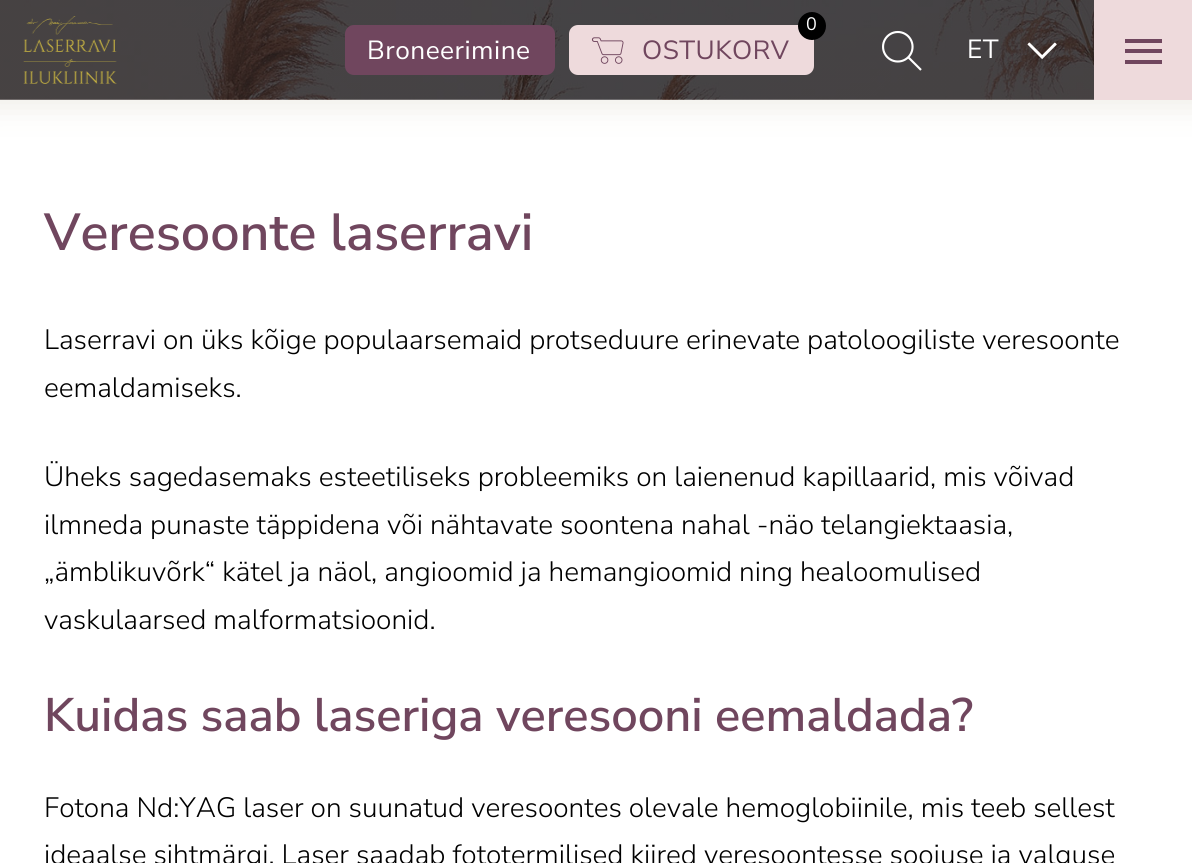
import math
import cairo

surface = cairo.ImageSurface(cairo.FORMAT_RGB24, 1192, 863)
ctx = cairo.Context(surface)
options = cairo.FontOptions()
options.set_hint_metrics(cairo.HINT_METRICS_OFF)
options.set_hint_style(cairo.HINT_STYLE_NONE)
ctx.set_font_options(options)
ctx.set_miter_limit(4)


def set_color(code):
    ctx.set_source_rgb(*(v / 255 for v in bytes.fromhex(code[-6:])))


def draw_text(x, y, s, family, size, color, bold=False, italic=False):
    ctx.select_font_face(family, cairo.FONT_SLANT_ITALIC if italic else cairo.FONT_SLANT_NORMAL, cairo.FONT_WEIGHT_BOLD if bold else cairo.FONT_WEIGHT_NORMAL)
    ctx.set_font_size(size)
    set_color(color)
    ctx.move_to(x, y)
    ctx.show_text(s)


def draw_spaced(x, y, s, letter, word):
    ctx.move_to(x, y)
    for ch in s:
        ctx.show_text(ch)
        ctx.rel_move_to(letter + word * (ch == ' '), 0)


def fill_rect(x, y, w, h, color):
    set_color(color)
    ctx.rectangle(x, y, w, h)
    ctx.fill()


def rounded_rect(x, y, w, h, r):
    ctx.new_sub_path()
    for i, (u, v) in enumerate([(x + w - r, y + h - r), (x + r, y + h - r), (x + r, y + r), (x + w - r, y + r)]):
        ctx.arc(u, v, r, i * math.pi / 2, (i + 1) * math.pi / 2)
    ctx.close_path()


def draw_shadow(x, y, w, h, r, blur, alpha):
    ctx.push_group_with_content(cairo.CONTENT_ALPHA)
    ctx.set_operator(cairo.OPERATOR_SOURCE)
    for i in range(15, -16, -2):
        e = blur * i / 6
        if min(w, h) + 2 * e > 0:
            ctx.set_source_rgba(0, 0, 0, alpha * math.erfc((i - 1) / 8.5) / 2)
            rounded_rect(x - e, y - e, w + 2 * e, h + 2 * e, max(0, min(r + e + blur * .6, min(w, h) / 2 + e)))
            ctx.fill()
    ctx.mask(ctx.pop_group())


def draw_image(path, x, y, w, h):
    ctx.save()
    ctx.set_source_surface(cairo.ImageSurface.create_from_png(path), x, y)
    ctx.rectangle(x, y, w, h)
    ctx.fill()
    ctx.restore()


set_color("#ffffff")
ctx.paint()
set_color("#776638")
draw_shadow(-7, -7, 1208, 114, 0, 16.5, 0.12)
draw_image("assets/img1.png", 0, 0, 1094, 100)
draw_image("assets/img2.png", 23, 16, 94, 68)
set_color("#70465e")
rounded_rect(346, 26, 208, 48, 8)
ctx.fill_preserve()
ctx.stroke()
ctx.select_font_face("Nunito Sans")
ctx.set_font_size(26.25)
set_color("#ffffff")
draw_spaced(367, 59, "Broneerimine", 0.5, 0)
set_color("#eedadc")
rounded_rect(570, 26, 243, 48, 8)
ctx.fill_preserve()
ctx.stroke()
set_color("#000000")
ctx.arc(812, 26, 14, 0, 2 * math.pi)
ctx.fill()
ctx.set_font_size(18)
set_color("#ffffff")
draw_spaced(806, 30, "0", 0.5, 0)
draw_image("assets/img3.png", 591, 37, 33, 27)
ctx.set_font_size(26.25)
set_color("#70465e")
draw_spaced(642, 59, "OSTUKORV", 0.5, 0)
draw_image("assets/img4.png", 882, 30, 40, 41)
set_color("#ffffff")
draw_spaced(967, 58, "ET", 0.5, 0)
draw_image("assets/img5.png", 1027, 42, 30, 17)
fill_rect(1094, 0, 98, 100, "#eedadc")
fill_rect(1125, 39, 37, 4, "#70465e")
fill_rect(1125, 49, 37, 4, "#70465e")
fill_rect(1125, 60, 37, 4, "#70465e")
draw_text(44, 250, "Veresoonte laserravi", "Nunito Sans SemiBold", 52, "#70465e")
draw_text(44, 349, "Laserravi on üks kõige populaarsemaid protseduure erinevate patoloogiliste veresoonte", "Nunito Sans Light", 28, "#000000")
draw_text(44, 397, "eemaldamiseks.", "Nunito Sans Light", 28, "#000000")
draw_text(44, 486, "Üheks sagedasemaks esteetiliseks probleemiks on laienenud kapillaarid, mis võivad", "Nunito Sans Light", 28, "#000000")
draw_text(44, 534, "ilmneda punaste täppidena või nähtavate soontena nahal -näo telangiektaasia,", "Nunito Sans Light", 28, "#000000")
draw_text(44, 581, "„ämblikuvõrk“ kätel ja näol, angioomid ja hemangioomid ning healoomulised", "Nunito Sans Light", 28, "#000000")
draw_text(44, 629, "vaskulaarsed malformatsioonid.", "Nunito Sans Light", 28, "#000000")
draw_text(44, 731, "Kuidas saab laseriga veresooni eemaldada?", "Nunito Sans SemiBold", 47, "#70465e")
draw_text(44, 817, "Fotona Nd:YAG laser on suunatud veresoontes olevale hemoglobiinile, mis teeb sellest", "Nunito Sans Light", 28, "#000000")
draw_text(44, 864, "ideaalse sihtmärgi. Laser saadab fototermilised kiired veresoontesse soojuse ja valguse", "Nunito Sans Light", 28, "#000000")
surface.write_to_png("output.png")
